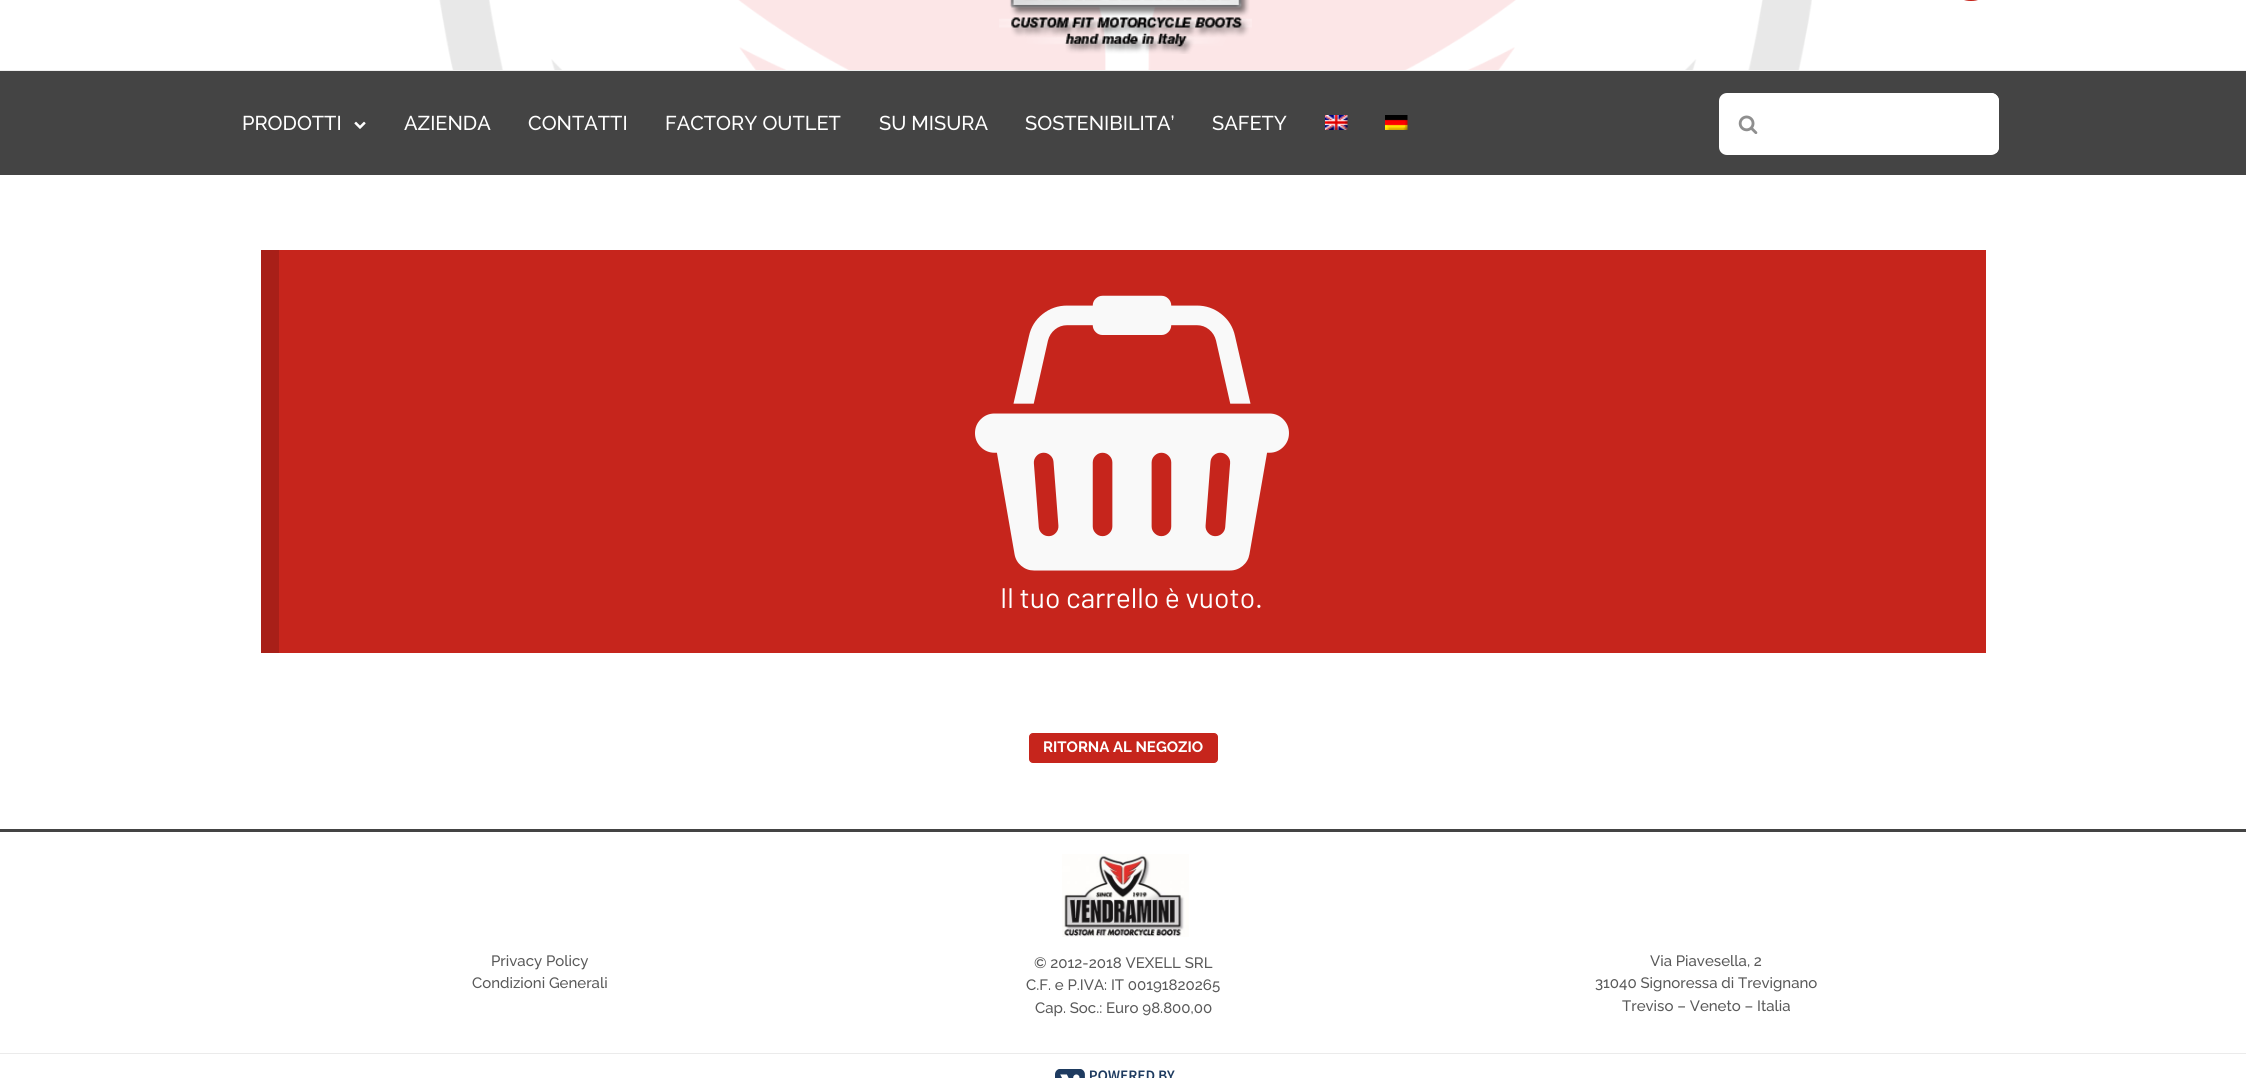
import math
import cairo

surface = cairo.ImageSurface(cairo.FORMAT_RGB24, 2246, 1078)
ctx = cairo.Context(surface)
options = cairo.FontOptions()
options.set_hint_metrics(cairo.HINT_METRICS_OFF)
options.set_hint_style(cairo.HINT_STYLE_NONE)
ctx.set_font_options(options)
ctx.set_miter_limit(4)


def set_color(code):
    ctx.set_source_rgb(*(v / 255 for v in bytes.fromhex(code[-6:])))


def draw_text(x, y, s, family, size, color, bold=False, italic=False):
    ctx.select_font_face(family, cairo.FONT_SLANT_ITALIC if italic else cairo.FONT_SLANT_NORMAL, cairo.FONT_WEIGHT_BOLD if bold else cairo.FONT_WEIGHT_NORMAL)
    ctx.set_font_size(size)
    set_color(color)
    ctx.move_to(x, y)
    ctx.show_text(s)


def fill_rect(x, y, w, h, color):
    set_color(color)
    ctx.rectangle(x, y, w, h)
    ctx.fill()


def rounded_rect(x, y, w, h, r):
    ctx.new_sub_path()
    for i, (u, v) in enumerate([(x + w - r, y + h - r), (x + r, y + h - r), (x + r, y + r), (x + w - r, y + r)]):
        ctx.arc(u, v, r, i * math.pi / 2, (i + 1) * math.pi / 2)
    ctx.close_path()


def draw_image(path, x, y, w, h):
    ctx.save()
    ctx.set_source_surface(cairo.ImageSurface.create_from_png(path), x, y)
    ctx.rectangle(x, y, w, h)
    ctx.fill()
    ctx.restore()


set_color("#ffffff")
ctx.paint()
draw_image("assets/img1.png", 439, 0, 1373, 70)
fill_rect(0, 70, 2246, 1, "#eeeeee")
set_color("#c6251c")
rounded_rect(1949, -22, 44, 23, 21.5)
ctx.fill()
draw_image("assets/img2.png", 999, 0, 253, 54)
fill_rect(0, 71, 2246, 104, "#444444")
draw_text(242, 130, "PRODOTTI", "Raleway Medium", 20, "#ffffff")
draw_image("assets/img3.png", 354, 121, 12, 8)
draw_text(404, 130, "AZIENDA", "Raleway Medium", 20, "#ffffff")
draw_text(528, 130, "CONTATTI", "Raleway Medium", 20, "#ffffff")
draw_text(665, 130, "FACTORY OUTLET", "Raleway Medium", 20, "#ffffff")
draw_text(879, 130, "SU MISURA", "Raleway Medium", 20, "#ffffff")
draw_text(1025, 130, "SOSTENIBILITA’", "Raleway Medium", 20, "#ffffff")
draw_text(1212, 130, "SAFETY", "Raleway Medium", 20, "#ffffff")
draw_image("assets/img4.png", 1325, 115, 23, 15)
draw_image("assets/img5.png", 1385, 115, 23, 15)
rounded_rect(1719, 93, 280, 62, 8)
ctx.fill()
draw_image("assets/img6.png", 1738, 115, 20, 19)
ctx.save()
rounded_rect(1719, 93, 280, 62, 8)
ctx.clip()
ctx.new_path()
ctx.move_to(1758, 93)
ctx.line_to(1991, 93)
ctx.curve_to(1995.5, 93, 1999, 96.5, 1999, 101)
ctx.line_to(1999, 153)
ctx.line_to(1758, 153)
ctx.close_path()
ctx.fill()
ctx.restore()
fill_rect(279, 250, 1707, 403, "#c6251c")
fill_rect(261, 250, 18, 403, "#a81f18")
draw_image("assets/img7.png", 975, 295, 314, 276)
draw_text(1000, 608, "Il tuo carrello è vuoto.", "Barlow", 28.25, "#ffffff")
set_color("#c6251c")
rounded_rect(1029.5, 733.5, 188, 29, 3.5)
ctx.fill_preserve()
ctx.set_line_width(1)
ctx.stroke()
draw_text(1043, 752, "RITORNA AL NEGOZIO", "Raleway", 15, "#ffffff", bold=True)
fill_rect(0, 829, 2246, 3, "#444444")
draw_text(491, 966, "Privacy Policy", "Raleway Medium", 15, "#595959")
draw_text(472, 988, "Condizioni Generali", "Raleway Medium", 15, "#595959")
draw_image("assets/img8.png", 1062, 854, 127, 83)
draw_text(1034, 968, "© 2012-2018 VEXELL SRL", "Raleway Medium", 15, "#595959")
draw_text(1026, 990, "C.F. e P.IVA: IT 00191820265", "Raleway Medium", 15, "#595959")
draw_text(1035, 1013, "Cap. Soc.: Euro 98.800,00", "Raleway Medium", 15, "#595959")
draw_text(1650, 966, "Via Piavesella, 2", "Raleway Medium", 15, "#595959")
draw_text(1595, 988, "31040 Signoressa di Trevignano", "Raleway Medium", 15, "#595959")
draw_text(1622, 1011, "Treviso – Veneto – Italia", "Raleway Medium", 15, "#595959")
fill_rect(0, 1053, 2246, 1, "#ebebeb")
draw_image("assets/img9.png", 1055, 1069, 120, 9)
surface.write_to_png("output.png")
